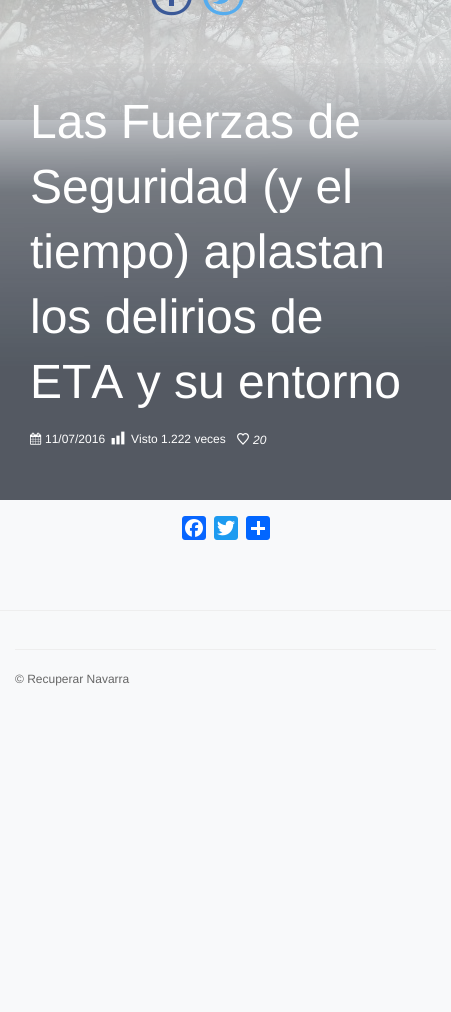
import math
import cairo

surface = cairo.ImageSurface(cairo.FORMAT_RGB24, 451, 1012)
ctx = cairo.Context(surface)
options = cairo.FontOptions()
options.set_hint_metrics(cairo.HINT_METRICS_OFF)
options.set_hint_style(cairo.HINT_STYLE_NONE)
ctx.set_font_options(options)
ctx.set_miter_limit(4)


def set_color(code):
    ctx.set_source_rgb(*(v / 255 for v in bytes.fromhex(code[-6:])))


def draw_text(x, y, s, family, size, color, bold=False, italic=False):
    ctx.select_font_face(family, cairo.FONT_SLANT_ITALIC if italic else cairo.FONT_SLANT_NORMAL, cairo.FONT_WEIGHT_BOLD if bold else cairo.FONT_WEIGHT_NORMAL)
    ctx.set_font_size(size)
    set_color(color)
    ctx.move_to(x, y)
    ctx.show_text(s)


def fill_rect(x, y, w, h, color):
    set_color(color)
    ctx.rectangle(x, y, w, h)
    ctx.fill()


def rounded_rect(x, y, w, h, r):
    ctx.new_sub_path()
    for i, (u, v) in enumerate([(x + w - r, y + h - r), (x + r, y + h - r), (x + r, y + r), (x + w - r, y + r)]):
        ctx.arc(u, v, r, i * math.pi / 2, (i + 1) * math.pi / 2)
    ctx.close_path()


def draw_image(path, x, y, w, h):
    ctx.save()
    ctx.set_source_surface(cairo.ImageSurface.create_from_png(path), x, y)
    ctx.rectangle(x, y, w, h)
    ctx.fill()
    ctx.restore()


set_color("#f8f9fa")
ctx.paint()
draw_image("assets/img1.png", 0, 0, 451, 120)
set_color("#3b5998")
ctx.new_path()
ctx.move_to(172, -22)
ctx.curve_to(194, -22, 194, 12, 172, 12)
ctx.curve_to(149, 12, 149, -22, 172, -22)
ctx.close_path()
ctx.move_to(192, -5)
ctx.curve_to(192, -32, 151, -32, 151, -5)
ctx.curve_to(151, 22, 192, 22, 192, -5)
ctx.close_path()
ctx.fill()
fill_rect(169, 0, 5, 6, "#3b5998")
set_color("#55acee")
ctx.new_path()
ctx.move_to(224, -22)
ctx.curve_to(246, -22, 246, 12, 224, 12)
ctx.curve_to(201, 12, 201, -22, 224, -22)
ctx.close_path()
ctx.move_to(244, -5)
ctx.curve_to(244, -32, 203, -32, 203, -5)
ctx.curve_to(203, 22, 244, 22, 244, -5)
ctx.close_path()
ctx.fill()
draw_image("assets/img2.png", 212, 0, 17, 4)
fill_rect(0, 610, 451, 1, "#eeeeee")
gradient = cairo.LinearGradient(225, 59, 226, 500)
gradient.add_color_stop_rgba(0, 0.165, 0.192, 0.235, 0)
gradient.add_color_stop_rgba(0.3, 0.165, 0.192, 0.235, 0.65)
gradient.add_color_stop_rgba(0.7, 0.165, 0.192, 0.235, 0.8)
gradient.add_color_stop_rgba(1, 0.165, 0.192, 0.235, 0.8)
ctx.set_source(gradient)
ctx.rectangle(0, 63, 451, 437)
ctx.fill()
draw_text(30, 138, "Las Fuerzas de", "Liberation Sans", 48, "#ffffff")
draw_text(30, 203, "Seguridad (y el", "Liberation Sans", 48, "#ffffff")
draw_text(30, 268, "tiempo) aplastan", "Liberation Sans", 48, "#ffffff")
draw_text(30, 333, "los delirios de", "Liberation Sans", 48, "#ffffff")
draw_text(30, 398, "ETA y su entorno", "Liberation Sans", 48, "#ffffff")
draw_image("assets/img3.png", 30, 432, 12, 13)
draw_text(45, 443, "11/07/2016", "Liberation Sans", 12, "#ffffff")
draw_image("assets/img4.png", 111, 431, 14, 14)
draw_text(131, 443, "Visto 1.222 veces", "Liberation Sans", 12, "#ffffff")
draw_image("assets/img5.png", 237, 433, 12, 12)
draw_text(253, 444, "20", "Liberation Sans", 12, "#ffffff", italic=True)
set_color("#0866ff")
rounded_rect(182, 516, 24, 24, 3)
ctx.fill()
draw_image("assets/img6.png", 185, 519, 18, 18)
set_color("#1d9bf0")
rounded_rect(214, 516, 24, 24, 3)
ctx.fill()
draw_image("assets/img7.png", 217, 520, 18, 16)
set_color("#0166ff")
rounded_rect(246, 516, 24, 24, 3)
ctx.fill()
fill_rect(257, 521, 3, 14, "#ffffff")
fill_rect(251, 527, 14, 3, "#ffffff")
fill_rect(15, 649, 421, 1, "#eeeeee")
draw_text(15, 683, "© Recuperar Navarra", "Liberation Sans", 12, "#666666")
surface.write_to_png("output.png")
